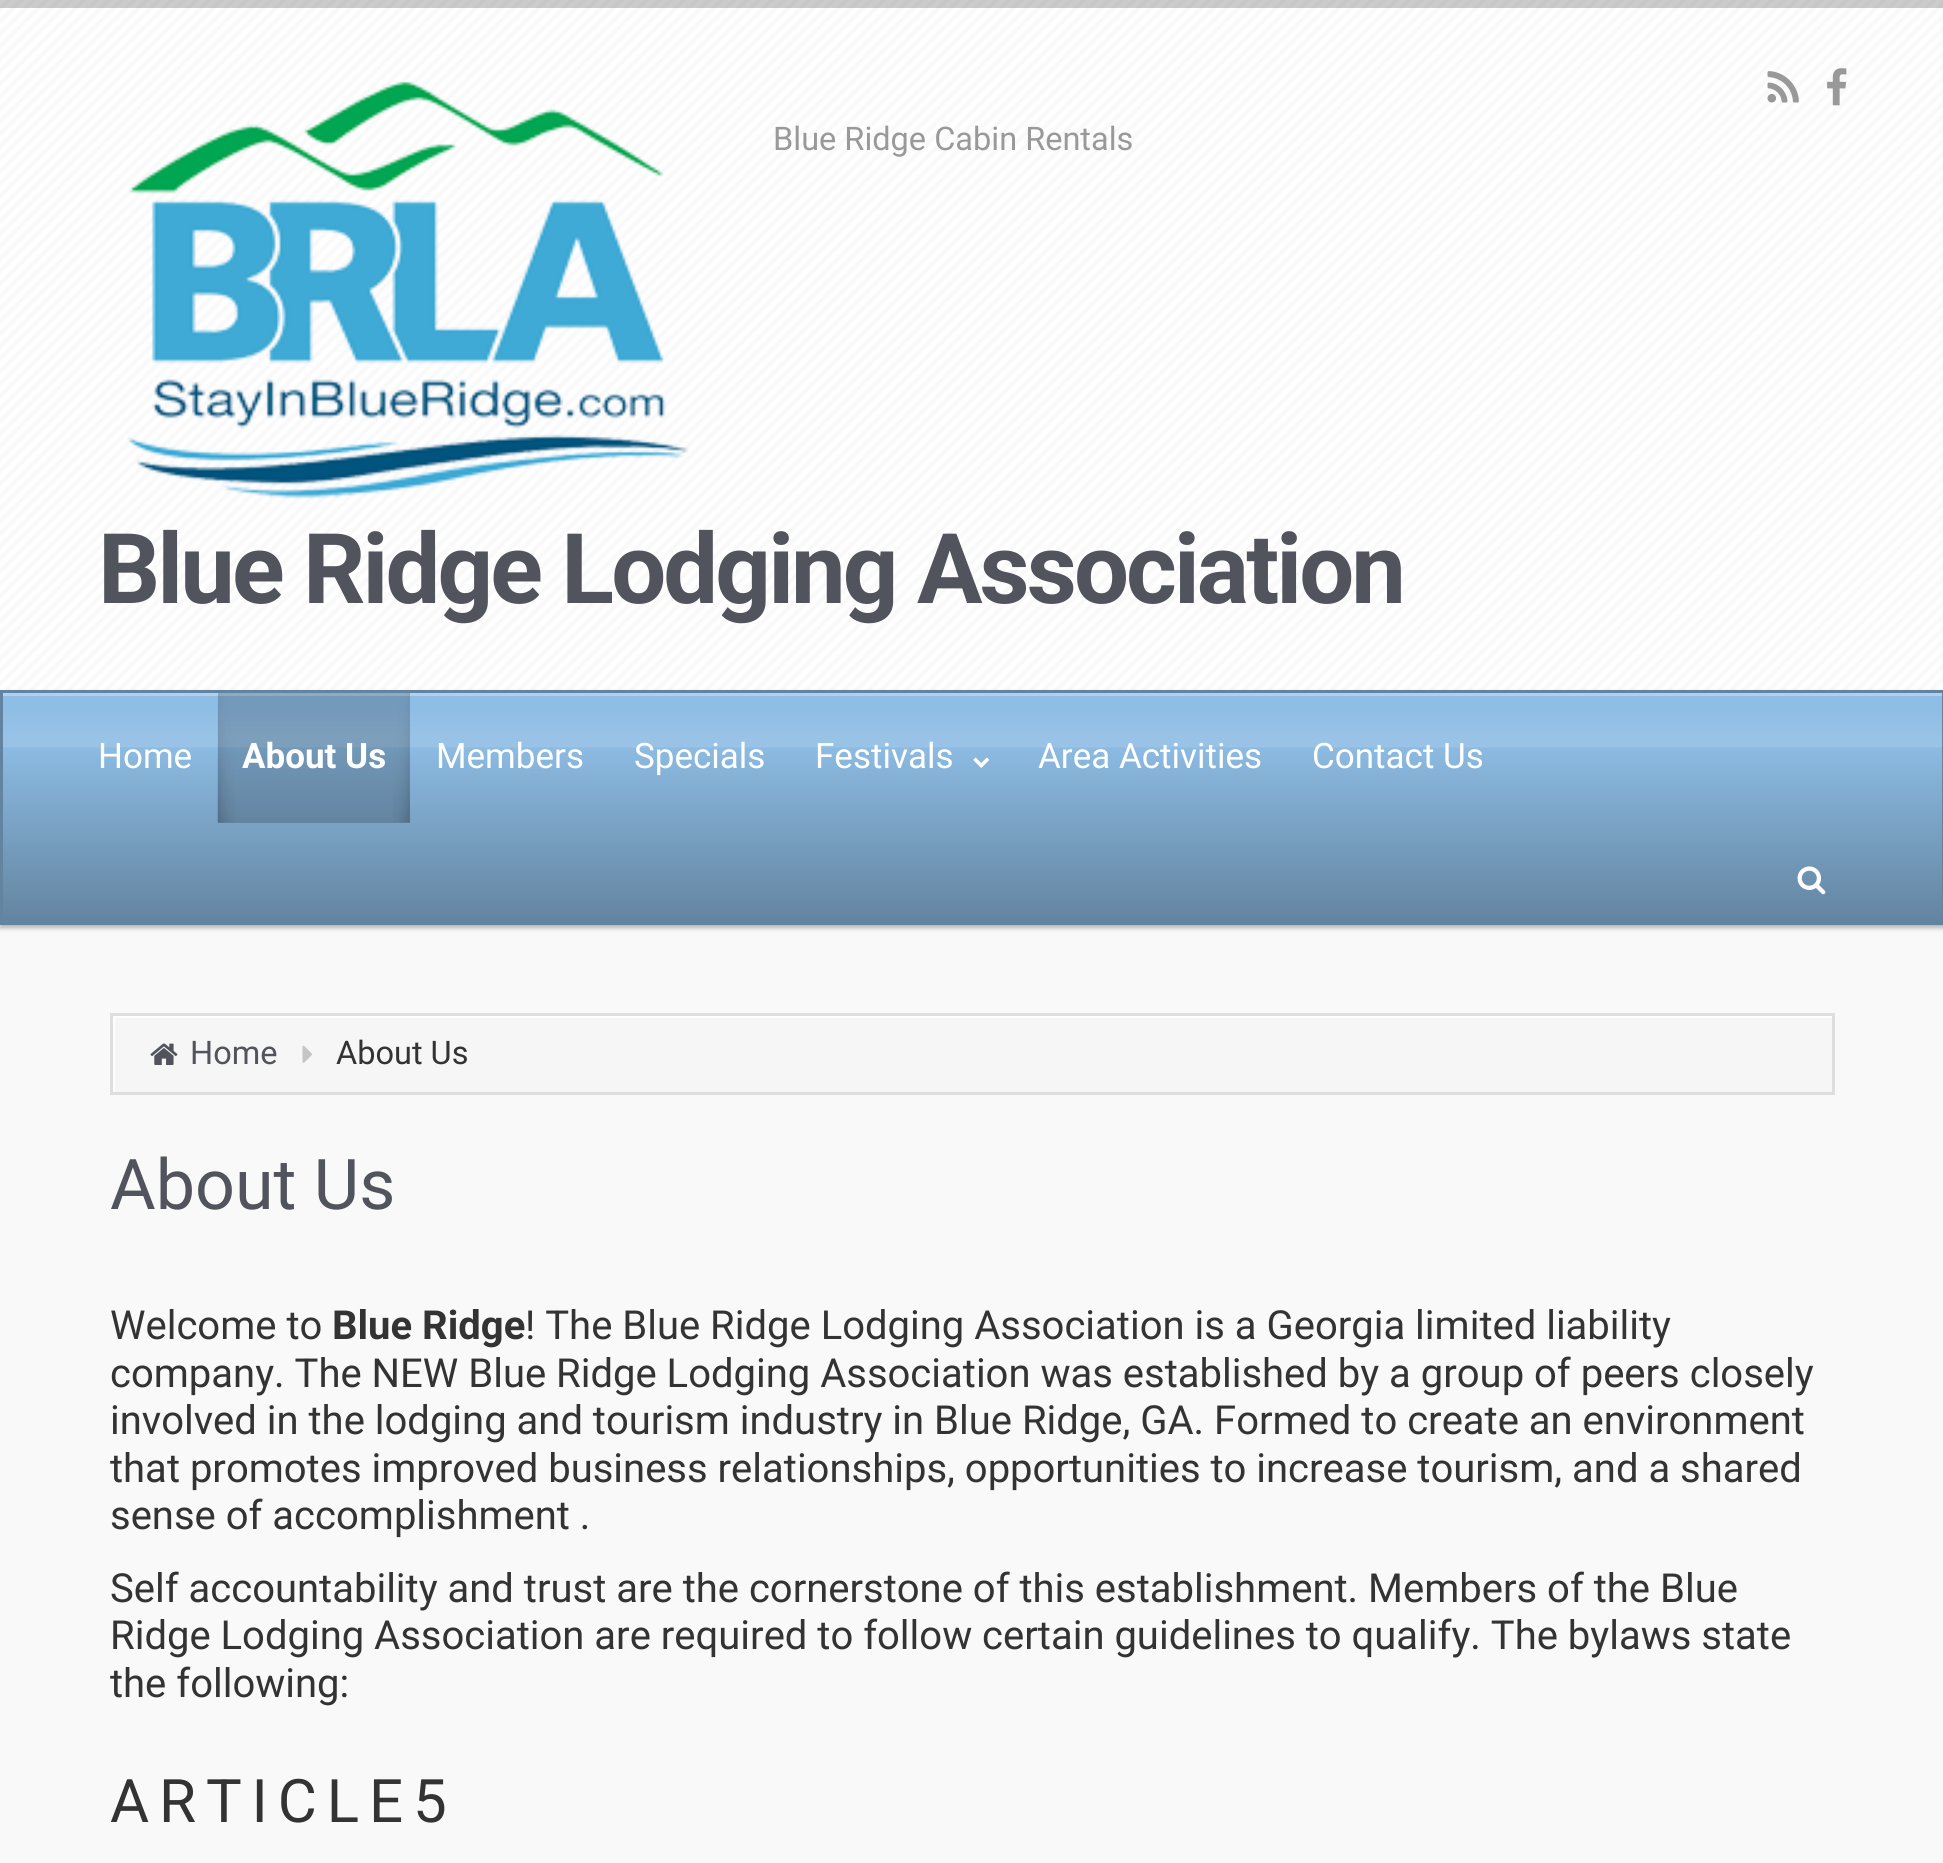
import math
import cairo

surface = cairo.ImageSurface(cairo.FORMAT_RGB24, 1943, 1863)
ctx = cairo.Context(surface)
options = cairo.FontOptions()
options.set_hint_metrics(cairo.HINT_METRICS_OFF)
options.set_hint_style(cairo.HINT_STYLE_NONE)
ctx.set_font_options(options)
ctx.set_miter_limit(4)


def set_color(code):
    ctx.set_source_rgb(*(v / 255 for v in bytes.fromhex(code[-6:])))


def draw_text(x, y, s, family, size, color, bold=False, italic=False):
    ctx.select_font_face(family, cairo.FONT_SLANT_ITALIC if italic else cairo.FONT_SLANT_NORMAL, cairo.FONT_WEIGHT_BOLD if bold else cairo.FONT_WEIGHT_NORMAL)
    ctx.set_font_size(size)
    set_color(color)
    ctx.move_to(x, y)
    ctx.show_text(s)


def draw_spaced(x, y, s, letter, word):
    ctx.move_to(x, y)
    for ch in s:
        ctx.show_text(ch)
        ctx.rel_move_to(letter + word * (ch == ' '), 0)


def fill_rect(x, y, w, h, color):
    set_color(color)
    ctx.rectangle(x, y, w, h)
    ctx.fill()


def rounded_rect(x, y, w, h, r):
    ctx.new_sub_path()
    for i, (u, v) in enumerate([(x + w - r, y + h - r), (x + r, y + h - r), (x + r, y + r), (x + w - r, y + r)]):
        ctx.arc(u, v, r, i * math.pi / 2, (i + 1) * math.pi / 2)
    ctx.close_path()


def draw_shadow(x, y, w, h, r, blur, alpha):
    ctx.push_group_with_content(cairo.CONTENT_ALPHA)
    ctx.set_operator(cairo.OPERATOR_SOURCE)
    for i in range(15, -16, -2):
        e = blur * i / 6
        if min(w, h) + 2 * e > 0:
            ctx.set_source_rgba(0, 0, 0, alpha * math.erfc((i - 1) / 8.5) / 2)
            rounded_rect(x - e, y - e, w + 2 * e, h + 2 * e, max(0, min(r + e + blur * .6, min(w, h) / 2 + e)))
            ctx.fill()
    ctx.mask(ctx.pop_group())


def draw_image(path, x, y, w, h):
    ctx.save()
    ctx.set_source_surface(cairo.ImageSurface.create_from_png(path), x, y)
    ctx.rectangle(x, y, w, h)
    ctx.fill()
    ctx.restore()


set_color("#f9f9f9")
ctx.paint()
draw_image("assets/img1.png", 0, 0, 1943, 690)
ctx.set_source_rgba(0, 0, 0, 0.2)
ctx.rectangle(0, 0, 1943, 8)
ctx.fill()
draw_image("assets/img2.png", 127, 81, 562, 418)
draw_text(773, 150, "Blue Ridge Cabin Rentals", "Roboto", 32.5, "#999999")
draw_image("assets/img3.png", 1767, 71, 32, 32)
draw_image("assets/img4.png", 1827, 68, 20, 38)
ctx.select_font_face("Roboto", cairo.FONT_SLANT_NORMAL, cairo.FONT_WEIGHT_BOLD)
ctx.set_font_size(97.5)
set_color("#51545c")
draw_spaced(98, 603, "Blue Ridge Lodging Association", -2.9, 0)
set_color("#000000")
draw_shadow(0, 693, 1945, 235, 0, 2.5, 0.29)
draw_image("assets/img5.png", 3, 696, 1939, 226)
fill_rect(3, 693, 1940, 3, "#b0d1ed")
ctx.rectangle(1.5, 691.5, 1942, 232)
set_color("#6384a0")
ctx.set_line_width(3)
ctx.stroke()
draw_text(98, 768, "Home", "Roboto", 35, "#ffffff")
ctx.set_source_rgba(0, 0, 0, 0.1)
ctx.rectangle(218, 693, 192, 130)
ctx.fill()
draw_image("assets/img6.png", 217, 693, 18, 130)
draw_image("assets/img7.png", 393, 693, 17, 130)
ctx.rectangle(218, 693, 192, 130)
ctx.fill()
draw_text(242, 768, "About Us", "Roboto", 35, "#ffffff", bold=True)
draw_text(436, 768, "Members", "Roboto", 35, "#ffffff")
draw_text(634, 768, "Specials", "Roboto", 35, "#ffffff")
draw_text(815, 768, "Festivals", "Roboto", 35, "#ffffff")
draw_image("assets/img8.png", 973, 757, 16, 11)
draw_text(1038, 768, "Area Activities", "Roboto", 35, "#ffffff")
draw_text(1312, 768, "Contact Us", "Roboto", 35, "#ffffff")
draw_image("assets/img9.png", 1797, 866, 29, 29)
fill_rect(115, 1018, 1717, 74, "#f6f6f6")
ctx.save()
ctx.rectangle(113, 1015, 1720, 78)
ctx.clip()
set_color("#fefefe")
ctx.set_fill_rule(cairo.FILL_RULE_EVEN_ODD)
ctx.new_path()
ctx.move_to(-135, 768)
ctx.line_to(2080, 768)
ctx.line_to(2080, 1340)
ctx.line_to(-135, 1340)
ctx.close_path()
ctx.move_to(115, 1018)
ctx.line_to(1835, 1018)
ctx.line_to(1835, 1095)
ctx.line_to(115, 1095)
ctx.close_path()
ctx.fill()
ctx.restore()
ctx.rectangle(111.5, 1014.5, 1722, 79)
set_color("#e0dddd")
ctx.stroke()
draw_image("assets/img10.png", 150, 1043, 28, 22)
draw_text(190, 1064, "Home", "Roboto", 32.5, "#51545c")
draw_image("assets/img11.png", 302, 1045, 10, 18)
draw_text(336, 1064, "About Us", "Roboto", 32.5, "#333333")
draw_text(110, 1209, "About Us", "Roboto", 70, "#51545c")
draw_text(110, 1339, "Welcome to", "Roboto", 40, "#333333")
draw_text(332, 1339, "Blue Ridge", "Roboto", 40, "#333333", bold=True)
draw_text(525, 1339, "! The Blue Ridge Lodging Association is a Georgia limited liability", "Roboto", 40, "#333333")
draw_text(110, 1387, "company. The NEW Blue Ridge Lodging Association was established by a group of peers closely", "Roboto", 40, "#333333")
draw_text(110, 1434, "involved in the lodging and tourism industry in Blue Ridge, GA. Formed to create an environment", "Roboto", 40, "#333333")
draw_text(110, 1482, "that promotes improved business relationships, opportunities to increase tourism, and a shared", "Roboto", 40, "#333333")
draw_text(110, 1529, "sense of accomplishment .", "Roboto", 40, "#333333")
draw_text(110, 1602, "Self accountability and trust are the cornerstone of this establishment. Members of the Blue", "Roboto", 40, "#333333")
draw_text(110, 1649, "Ridge Lodging Association are required to follow certain guidelines to qualify. The bylaws state", "Roboto", 40, "#333333")
draw_text(110, 1697, "the following:", "Roboto", 40, "#333333")
ctx.set_font_size(60)
draw_spaced(110, 1822, "A R T I C L E 5", -2.5, 0)
surface.write_to_png("output.png")
